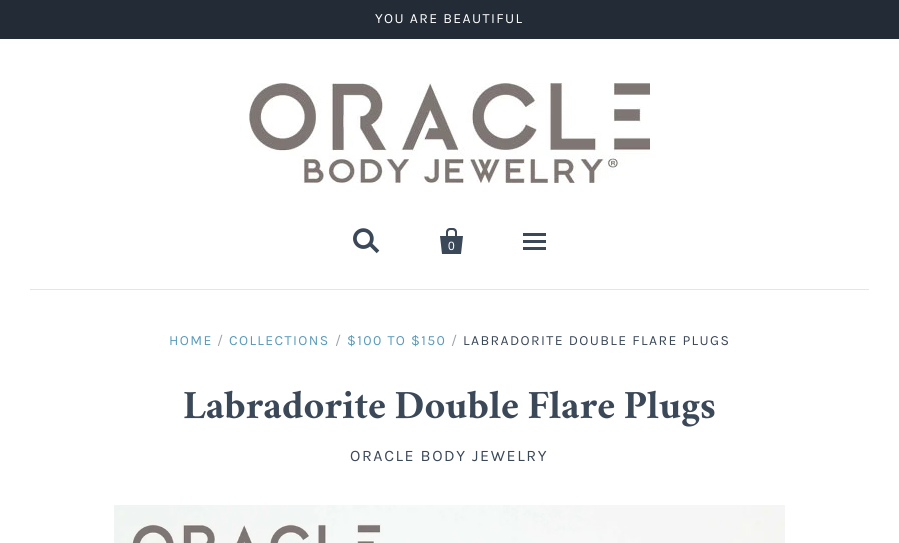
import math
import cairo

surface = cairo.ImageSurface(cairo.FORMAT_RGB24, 899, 543)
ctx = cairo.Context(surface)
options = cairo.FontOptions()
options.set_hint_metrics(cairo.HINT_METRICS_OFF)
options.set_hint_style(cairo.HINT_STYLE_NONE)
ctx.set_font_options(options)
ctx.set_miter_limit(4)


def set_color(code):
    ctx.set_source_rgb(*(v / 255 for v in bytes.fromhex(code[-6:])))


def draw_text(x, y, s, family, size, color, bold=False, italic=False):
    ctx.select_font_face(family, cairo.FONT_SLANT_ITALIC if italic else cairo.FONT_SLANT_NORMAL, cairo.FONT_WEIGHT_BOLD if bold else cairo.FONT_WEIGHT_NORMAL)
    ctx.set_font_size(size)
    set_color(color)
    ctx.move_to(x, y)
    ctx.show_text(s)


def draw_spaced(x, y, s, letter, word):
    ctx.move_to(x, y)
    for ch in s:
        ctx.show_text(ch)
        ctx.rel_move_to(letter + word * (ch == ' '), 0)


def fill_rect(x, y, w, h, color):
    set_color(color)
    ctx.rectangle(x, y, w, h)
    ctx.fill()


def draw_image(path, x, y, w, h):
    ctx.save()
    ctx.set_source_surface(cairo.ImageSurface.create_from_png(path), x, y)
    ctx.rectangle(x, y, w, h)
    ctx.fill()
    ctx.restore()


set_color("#ffffff")
ctx.paint()
fill_rect(0, 0, 899, 39, "#232b36")
ctx.select_font_face("Karla")
ctx.set_font_size(14)
set_color("#ffffff")
draw_spaced(375, 23, "YOU ARE BEAUTIFUL", 1.4, 0)
fill_rect(30, 289, 839, 1, "#e5e5e5")
draw_image("assets/img1.png", 249, 83, 401, 100)
draw_image("assets/img2.png", 353, 228, 27, 26)
draw_image("assets/img3.png", 440, 228, 23, 26)
draw_text(448, 250, "0", "Liberation Sans", 12, "#ffffff")
fill_rect(523, 240, 23, 3, "#3b4858")
fill_rect(523, 233, 23, 3, "#3b4858")
fill_rect(523, 247, 23, 3, "#3b4858")
ctx.select_font_face("Karla")
ctx.set_font_size(14)
set_color("#599abb")
draw_spaced(169, 345, "HOME", 1.4, 0)
set_color("#9da3ab")
draw_spaced(217, 345, "/", 1.4, 0)
set_color("#599abb")
draw_spaced(229, 345, "COLLECTIONS", 1.4, 0)
set_color("#9da3ab")
draw_spaced(335, 345, "/", 1.4, 0)
set_color("#599abb")
draw_spaced(347, 345, "$100 TO $150", 1.4, 0)
set_color("#9da3ab")
draw_spaced(451, 345, "/", 1.4, 0)
set_color("#3b4858")
draw_spaced(463, 345, "LABRADORITE DOUBLE FLARE PLUGS", 1.4, 0)
draw_text(183, 418, "Labradorite Double Flare Plugs", "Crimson", 36, "#3b4858", bold=True)
ctx.select_font_face("Karla")
ctx.set_font_size(16)
draw_spaced(350, 461, "ORACLE BODY JEWELRY", 1.6, 0)
draw_image("assets/img4.png", 114, 505, 671, 38)
surface.write_to_png("output.png")
